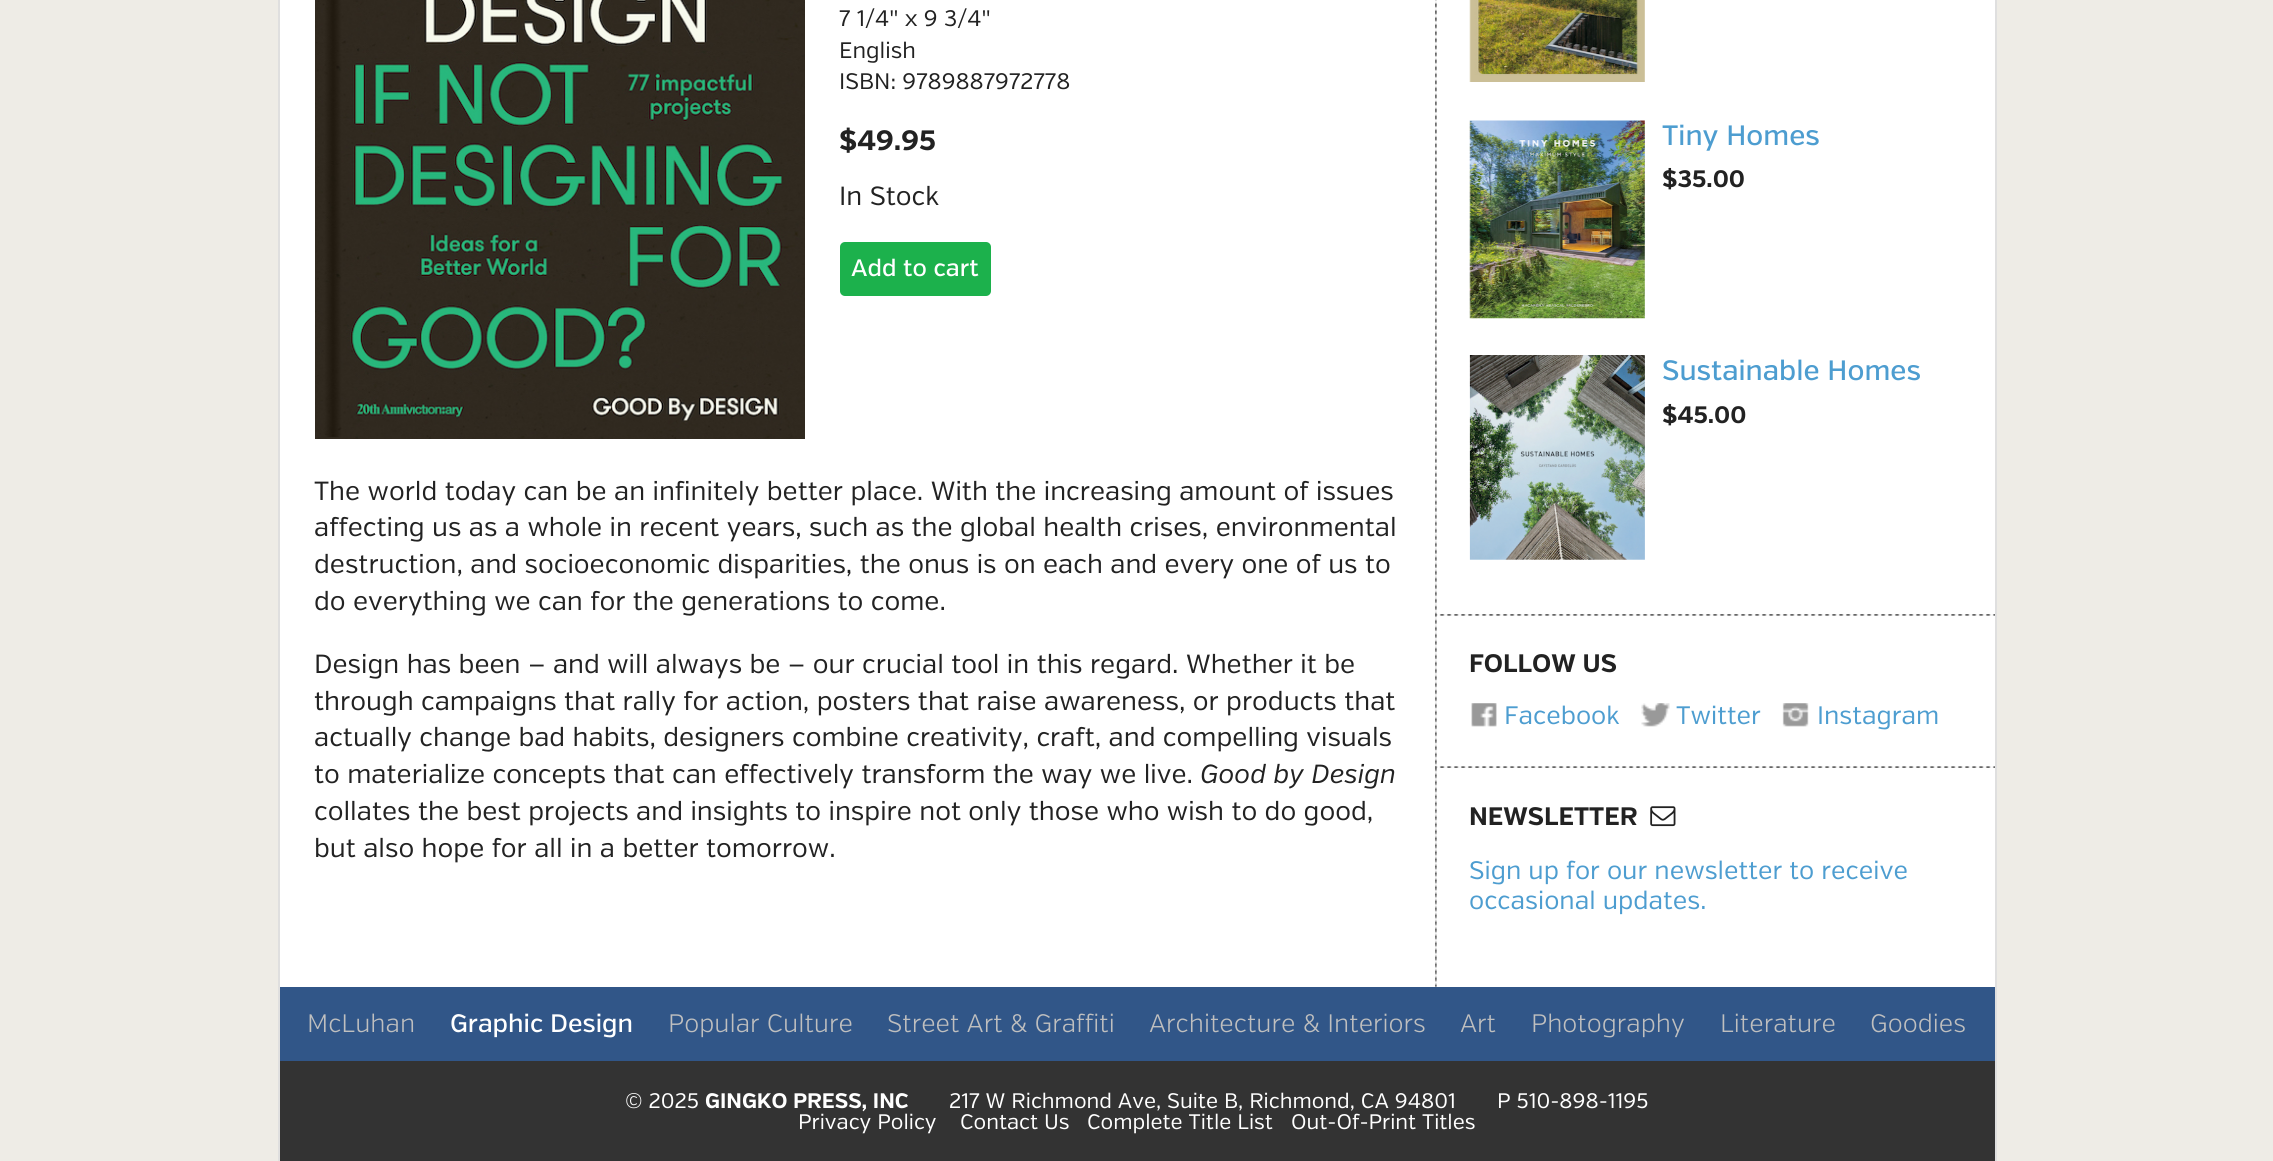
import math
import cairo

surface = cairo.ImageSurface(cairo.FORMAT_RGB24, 2273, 1161)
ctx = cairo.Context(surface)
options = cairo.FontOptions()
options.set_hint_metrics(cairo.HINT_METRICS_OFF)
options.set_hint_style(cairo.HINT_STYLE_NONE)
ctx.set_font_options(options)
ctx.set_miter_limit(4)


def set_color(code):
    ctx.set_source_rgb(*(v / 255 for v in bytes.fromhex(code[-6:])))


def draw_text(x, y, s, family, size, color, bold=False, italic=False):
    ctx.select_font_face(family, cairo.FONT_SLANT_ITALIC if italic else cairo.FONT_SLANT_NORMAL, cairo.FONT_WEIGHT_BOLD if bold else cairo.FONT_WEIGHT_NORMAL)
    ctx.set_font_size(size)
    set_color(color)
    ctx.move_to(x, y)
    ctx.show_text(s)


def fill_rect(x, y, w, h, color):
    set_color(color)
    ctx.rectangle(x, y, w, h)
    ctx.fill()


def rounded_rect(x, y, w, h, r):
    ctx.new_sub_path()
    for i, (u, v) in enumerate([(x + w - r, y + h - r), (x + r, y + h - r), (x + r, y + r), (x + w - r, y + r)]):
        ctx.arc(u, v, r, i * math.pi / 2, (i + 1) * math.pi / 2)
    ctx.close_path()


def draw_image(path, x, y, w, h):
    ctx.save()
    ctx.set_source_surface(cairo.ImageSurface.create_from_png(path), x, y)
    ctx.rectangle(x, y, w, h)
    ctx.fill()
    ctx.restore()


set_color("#eeece6")
ctx.paint()
fill_rect(280, 0, 1715, 987, "#ffffff")
fill_rect(1995, 0, 2, 1161, "#dfdfdf")
fill_rect(278, 0, 2, 1161, "#dfdfdf")
draw_image("assets/img1.png", 1435, 0, 2, 987)
draw_image("assets/img2.png", 315, 0, 490, 439)
draw_text(839, 26, "7 1/4\" x 9 3/4\"", "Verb", 22.4, "#222222")
draw_text(839, 58, "English", "Verb", 22.4, "#222222")
draw_text(839, 89, "ISBN: 9789887972778", "Verb", 22.4, "#222222")
draw_text(839, 150, "$49.95", "Verb", 28, "#222222", bold=True)
draw_text(839, 205, "In Stock", "Verb", 26.25, "#222222")
set_color("#1cb14c")
rounded_rect(840, 242, 151, 54, 5)
ctx.fill()
draw_text(851, 276, "Add to cart", "Verb Medium", 23.75, "#ffffff")
draw_text(314, 500, "The world today can be an infinitely better place. With the increasing amount of issues", "Verb", 26.25, "#222222")
draw_text(314, 536, "affecting us as a whole in recent years, such as the global health crises, environmental", "Verb", 26.25, "#222222")
draw_text(314, 573, "destruction, and socioeconomic disparities, the onus is on each and every one of us to", "Verb", 26.25, "#222222")
draw_text(314, 610, "do everything we can for the generations to come.", "Verb", 26.25, "#222222")
draw_text(314, 673, "Design has been — and will always be — our crucial tool in this regard. Whether it be", "Verb", 26.25, "#222222")
draw_text(314, 710, "through campaigns that rally for action, posters that raise awareness, or products that", "Verb", 26.25, "#222222")
draw_text(314, 746, "actually change bad habits, designers combine creativity, craft, and compelling visuals", "Verb", 26.25, "#222222")
draw_text(314, 783, "to materialize concepts that can effectively transform the way we live.", "Verb", 26.25, "#222222")
draw_text(1200, 783, "Good by Design", "Verb", 26.25, "#222222", italic=True)
draw_text(314, 820, "collates the best projects and insights to inspire not only those who wish to do good,", "Verb", 26.25, "#222222")
draw_text(314, 857, "but also hope for all in a better tomorrow.", "Verb", 26.25, "#222222")
draw_image("assets/img3.png", 1469, 0, 176, 82)
draw_image("assets/img4.png", 1469, 120, 176, 199)
draw_text(1662, 145, "Tiny Homes", "Verb Medium", 28, "#4d9dd0")
draw_text(1662, 187, "$35.00", "Verb", 23.75, "#222222", bold=True)
draw_image("assets/img5.png", 1469, 355, 176, 205)
draw_text(1662, 380, "Sustainable Homes", "Verb Medium", 28, "#4d9dd0")
draw_text(1662, 423, "$45.00", "Verb", 23.75, "#222222", bold=True)
draw_image("assets/img6.png", 1435, 614, 560, 2)
draw_text(1469, 672, "FOLLOW US", "Verb", 25.25, "#222222", bold=True)
draw_image("assets/img7.png", 1471, 703, 26, 24)
draw_text(1504, 724, "Facebook", "Verb", 25.25, "#4d9dd0")
draw_image("assets/img8.png", 1641, 703, 29, 24)
draw_text(1676, 724, "Twitter", "Verb", 25.25, "#4d9dd0")
draw_image("assets/img9.png", 1782, 703, 27, 24)
draw_text(1817, 724, "Instagram", "Verb", 25.25, "#4d9dd0")
draw_image("assets/img10.png", 1435, 766, 560, 2)
draw_text(1469, 825, "NEWSLETTER", "Verb", 25.25, "#222222", bold=True)
draw_image("assets/img11.png", 1650, 806, 26, 21)
draw_text(1469, 879, "Sign up for our newsletter to receive", "Verb", 25.25, "#4d9dd0")
draw_text(1469, 909, "occasional updates.", "Verb", 25.25, "#4d9dd0")
fill_rect(280, 987, 1715, 74, "#315688")
draw_text(307, 1032, "McLuhan", "Verb Light", 25.25, "#bfbfbf")
draw_text(450, 1032, "Graphic Design", "Verb Medium", 25.25, "#ffffff")
draw_text(668, 1032, "Popular Culture", "Verb Light", 25.25, "#bfbfbf")
draw_text(887, 1032, "Street Art & Graffiti", "Verb Light", 25.25, "#bfbfbf")
draw_text(1149, 1032, "Architecture & Interiors", "Verb Light", 25.25, "#bfbfbf")
draw_text(1460, 1032, "Art", "Verb Light", 25.25, "#bfbfbf")
draw_text(1531, 1032, "Photography", "Verb Light", 25.25, "#bfbfbf")
draw_text(1720, 1032, "Literature", "Verb Light", 25.25, "#bfbfbf")
draw_text(1870, 1032, "Goodies", "Verb Light", 25.25, "#bfbfbf")
fill_rect(280, 1061, 1715, 100, "#333333")
draw_text(625, 1108, "© 2025", "Verb", 21, "#ffffff")
draw_text(705, 1108, "GINGKO PRESS, INC", "Verb", 21, "#ffffff", bold=True)
draw_text(949, 1108, "217 W Richmond Ave, Suite B, Richmond, CA 94801", "Verb", 21, "#ffffff")
draw_text(1497, 1108, "P 510-898-1195", "Verb", 21, "#ffffff")
draw_text(798, 1129, "Privacy Policy", "Verb", 21, "#ffffff")
draw_text(960, 1129, "Contact Us", "Verb", 21, "#ffffff")
draw_text(1087, 1129, "Complete Title List", "Verb", 21, "#ffffff")
draw_text(1291, 1129, "Out-Of-Print Titles", "Verb", 21, "#ffffff")
surface.write_to_png("output.png")
